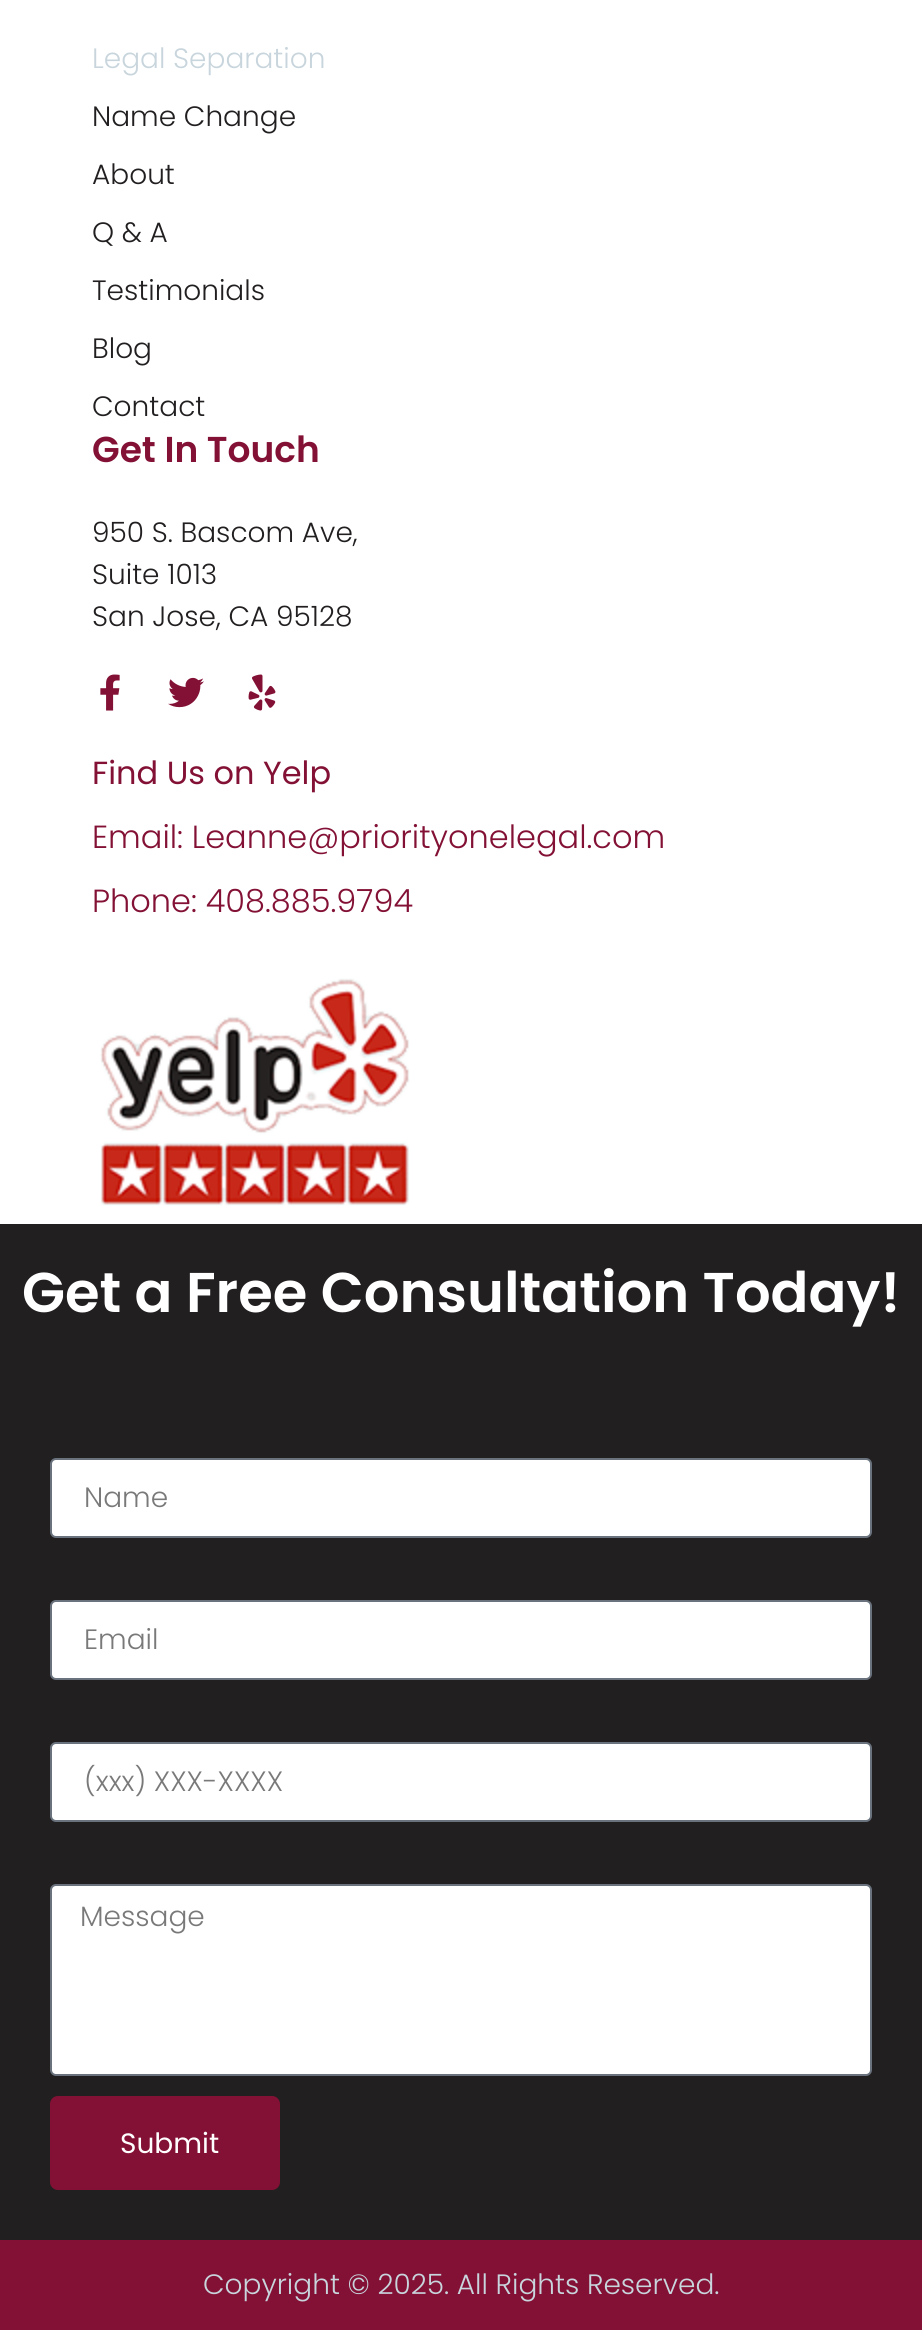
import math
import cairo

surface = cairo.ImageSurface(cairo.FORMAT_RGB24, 922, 2330)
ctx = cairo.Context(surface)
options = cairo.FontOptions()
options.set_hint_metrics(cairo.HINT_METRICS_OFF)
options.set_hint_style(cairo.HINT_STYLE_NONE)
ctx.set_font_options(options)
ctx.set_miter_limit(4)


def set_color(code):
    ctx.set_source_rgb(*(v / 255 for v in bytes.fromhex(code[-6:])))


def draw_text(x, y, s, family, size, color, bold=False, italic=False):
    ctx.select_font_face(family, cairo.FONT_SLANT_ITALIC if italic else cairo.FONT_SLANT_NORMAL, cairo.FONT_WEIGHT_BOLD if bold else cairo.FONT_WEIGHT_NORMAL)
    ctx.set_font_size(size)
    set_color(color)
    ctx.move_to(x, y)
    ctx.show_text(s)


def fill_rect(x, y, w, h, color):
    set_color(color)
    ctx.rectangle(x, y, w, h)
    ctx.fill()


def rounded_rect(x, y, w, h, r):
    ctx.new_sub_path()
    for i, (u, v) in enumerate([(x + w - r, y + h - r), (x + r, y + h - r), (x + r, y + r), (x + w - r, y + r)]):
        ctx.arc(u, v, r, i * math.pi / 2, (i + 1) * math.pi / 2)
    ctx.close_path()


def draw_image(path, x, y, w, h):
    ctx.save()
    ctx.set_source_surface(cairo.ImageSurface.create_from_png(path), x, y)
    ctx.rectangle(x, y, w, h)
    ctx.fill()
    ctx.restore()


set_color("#ffffff")
ctx.paint()
draw_text(92, 68, "Legal Separation", "Poppins Light", 28, "#c8d5dc")
draw_text(92, 126, "Name Change", "Poppins Light", 28, "#221f20")
draw_text(92, 184, "About", "Poppins Light", 28, "#221f20")
draw_text(92, 242, "Q & A", "Poppins Light", 28, "#221f20")
draw_text(92, 300, "Testimonials", "Poppins Light", 28, "#221f20")
draw_text(92, 358, "Blog", "Poppins Light", 28, "#221f20")
draw_text(92, 416, "Contact", "Poppins Light", 28, "#221f20")
draw_text(92, 462, "Get In Touch", "Poppins SemiBold", 36, "#831135")
draw_text(92, 542, "950 S. Bascom Ave,", "Poppins Light", 28, "#221f20")
draw_text(92, 584, "Suite 1013", "Poppins Light", 28, "#221f20")
draw_text(92, 626, "San Jose, CA 95128", "Poppins Light", 28, "#221f20")
draw_image("assets/img1.png", 100, 674, 20, 37)
draw_image("assets/img2.png", 168, 677, 36, 31)
draw_image("assets/img3.png", 248, 674, 28, 37)
draw_text(92, 784, "Find Us on Yelp", "Poppins", 32, "#831135")
draw_text(92, 848, "Email: Leanne@priorityonelegal.com", "Poppins Light", 32, "#831135")
draw_text(92, 912, "Phone: 408.885.9794", "Poppins Light", 32, "#831135")
draw_image("assets/img4.png", 100, 978, 310, 228)
fill_rect(0, 1224, 922, 1016, "#221f20")
draw_text(22, 1312, "Get a Free Consultation Today!", "Poppins SemiBold", 56, "#ffffff")
rounded_rect(51, 1459, 820, 78, 5)
ctx.fill_preserve()
set_color("#69727d")
ctx.stroke()
draw_text(84, 1507, "Name", "Poppins Light", 28, "#7a7979")
set_color("#ffffff")
rounded_rect(51, 1601, 820, 78, 5)
ctx.fill_preserve()
set_color("#69727d")
ctx.stroke()
draw_text(84, 1649, "Email", "Poppins Light", 28, "#7a7979")
set_color("#ffffff")
rounded_rect(51, 1743, 820, 78, 5)
ctx.fill_preserve()
set_color("#69727d")
ctx.stroke()
draw_text(84, 1791, "(xxx) XXX-XXXX", "Poppins Light", 28, "#7a7979")
set_color("#ffffff")
rounded_rect(51, 1885, 820, 190, 5)
ctx.fill_preserve()
set_color("#69727d")
ctx.stroke()
draw_text(80, 1926, "Message", "Poppins Light", 28, "#7a7979")
set_color("#831135")
rounded_rect(50, 2096, 230, 94, 8)
ctx.fill()
draw_text(120, 2153, "Submit", "Poppins", 28, "#ffffff")
fill_rect(0, 2240, 922, 90, "#831135")
draw_text(203, 2294, "Copyright © 2025. All Rights Reserved.", "Poppins Light", 28, "#c8d5dc")
surface.write_to_png("output.png")
